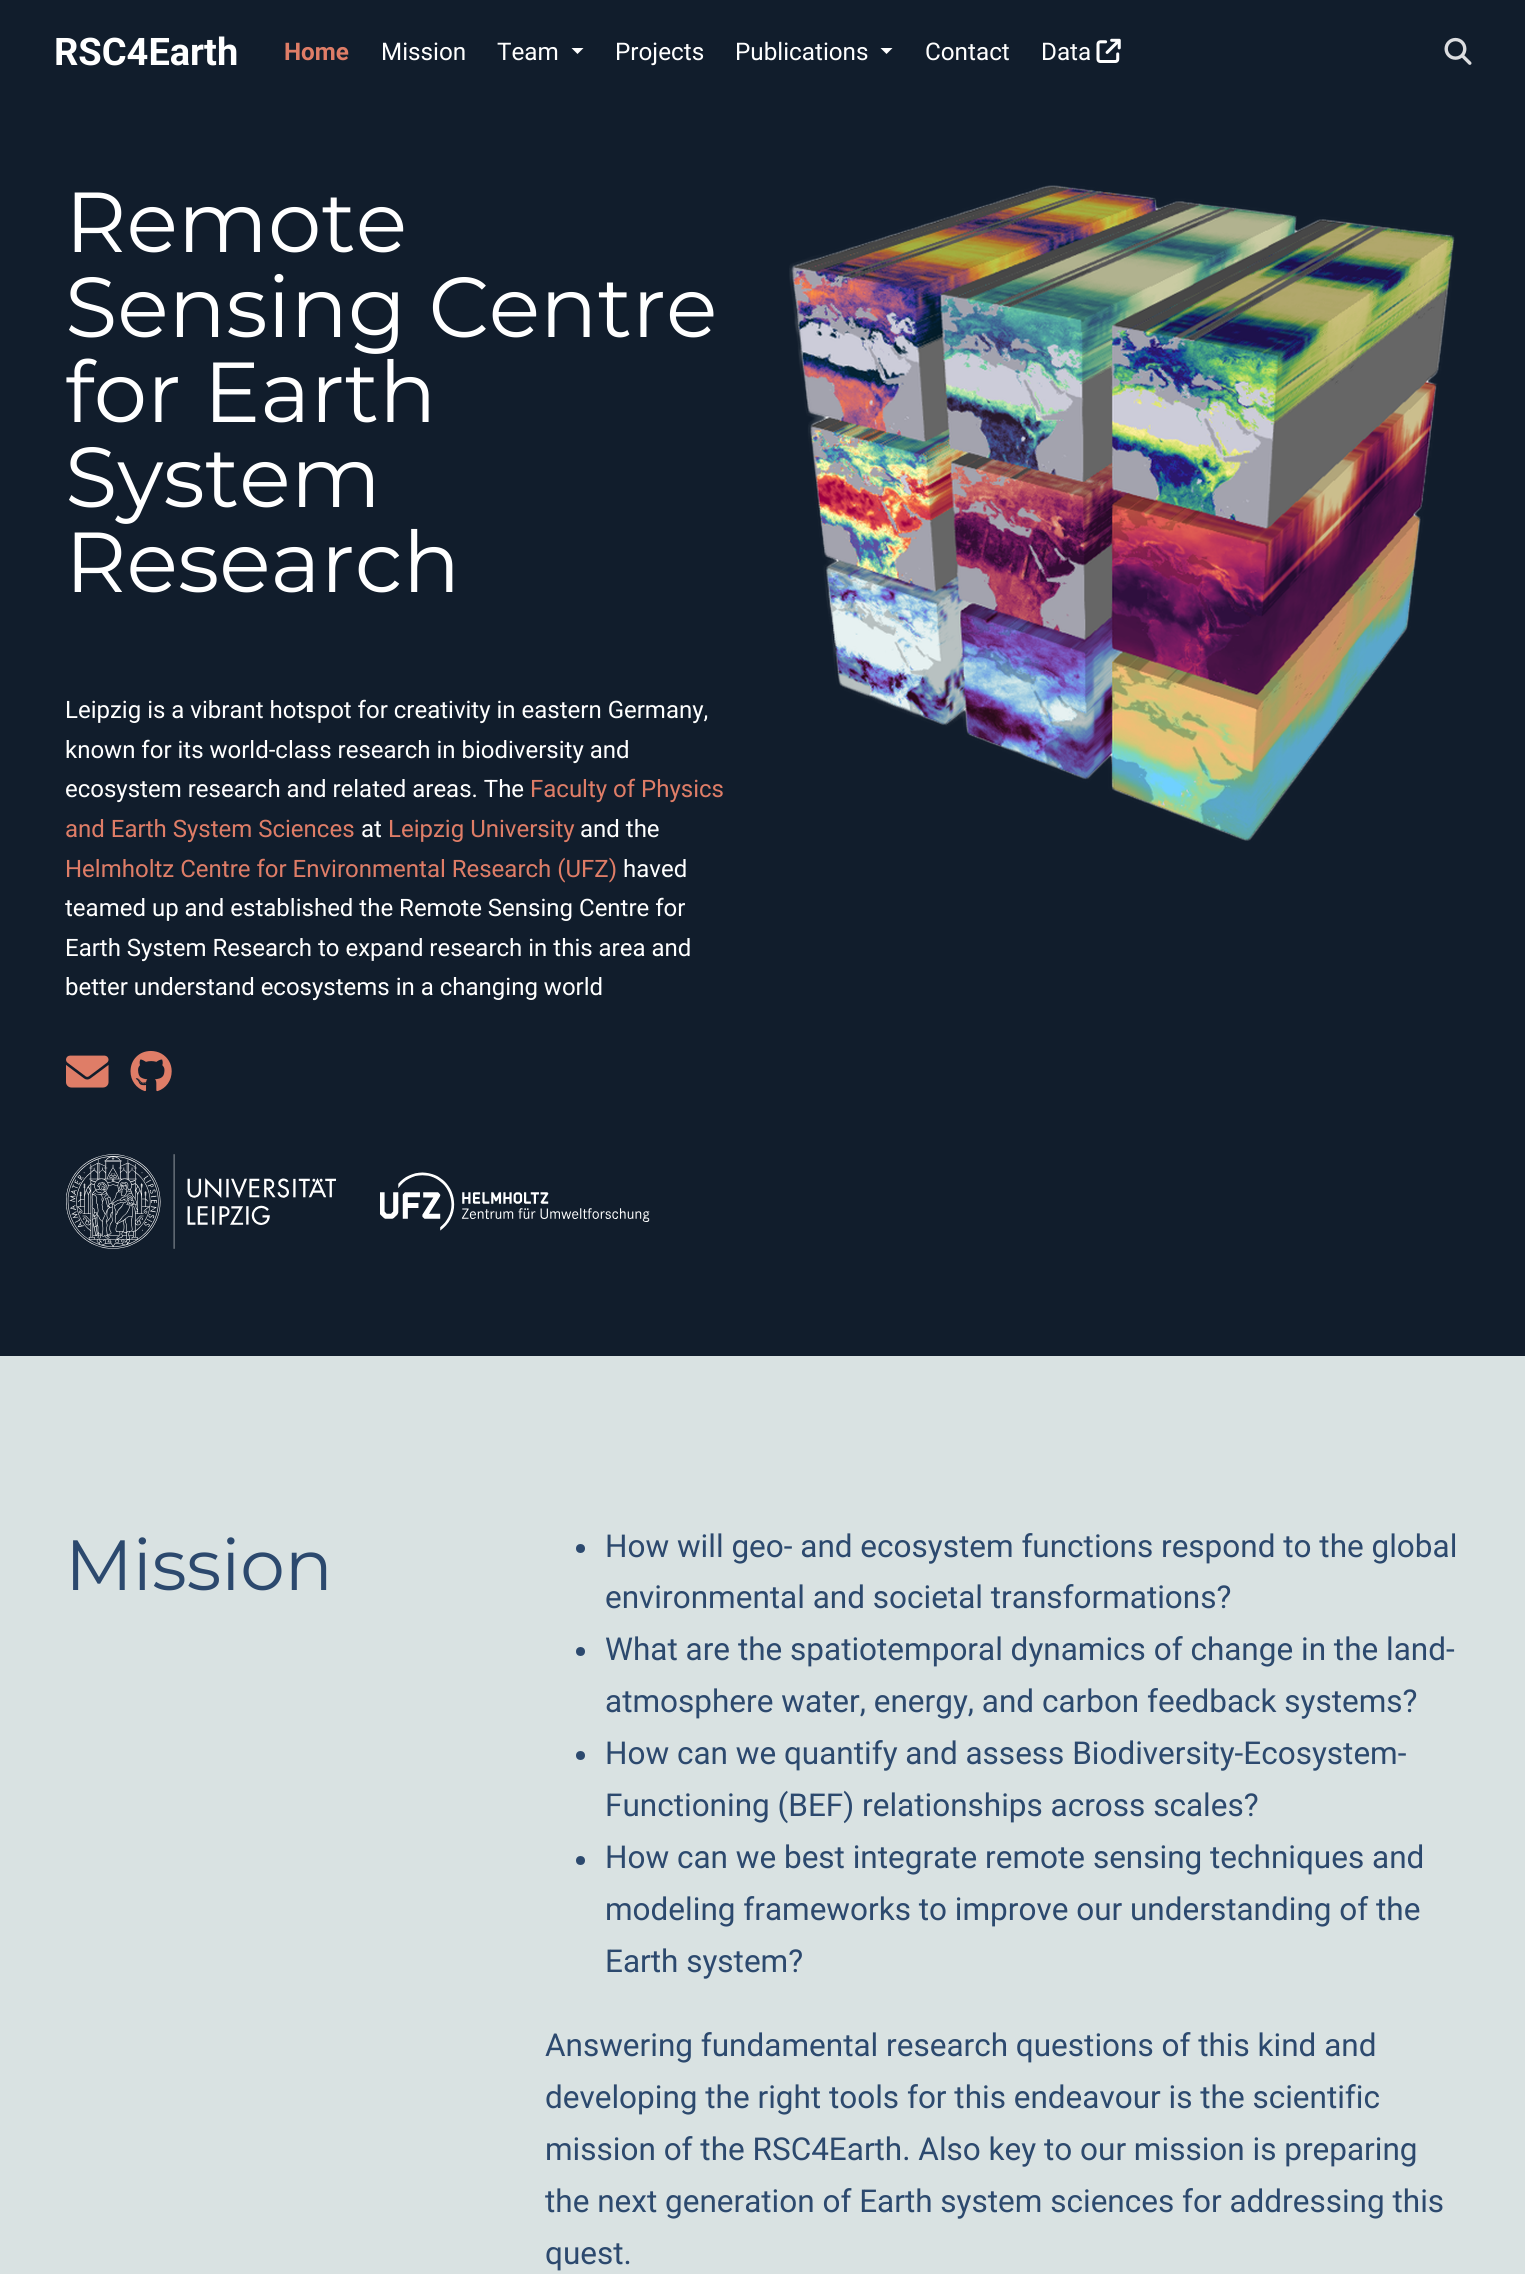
import math
import cairo

surface = cairo.ImageSurface(cairo.FORMAT_RGB24, 1525, 2274)
ctx = cairo.Context(surface)
options = cairo.FontOptions()
options.set_hint_metrics(cairo.HINT_METRICS_OFF)
options.set_hint_style(cairo.HINT_STYLE_NONE)
ctx.set_font_options(options)
ctx.set_miter_limit(4)


def set_color(code):
    ctx.set_source_rgb(*(v / 255 for v in bytes.fromhex(code[-6:])))


def draw_text(x, y, s, family, size, color, bold=False, italic=False):
    ctx.select_font_face(family, cairo.FONT_SLANT_ITALIC if italic else cairo.FONT_SLANT_NORMAL, cairo.FONT_WEIGHT_BOLD if bold else cairo.FONT_WEIGHT_NORMAL)
    ctx.set_font_size(size)
    set_color(color)
    ctx.move_to(x, y)
    ctx.show_text(s)


def fill_rect(x, y, w, h, color):
    set_color(color)
    ctx.rectangle(x, y, w, h)
    ctx.fill()


def draw_image(path, x, y, w, h):
    ctx.save()
    ctx.set_source_surface(cairo.ImageSurface.create_from_png(path), x, y)
    ctx.rectangle(x, y, w, h)
    ctx.fill()
    ctx.restore()


set_color("#111d2c")
ctx.paint()
draw_text(54, 65, "RSC4Earth", "Roboto", 38, "#ffffff", bold=True)
draw_text(284, 60, "Home", "Roboto", 24.25, "#df7d67", bold=True)
draw_text(381, 60, "Mission", "Roboto", 24.25, "#ffffff")
draw_text(497, 60, "Team", "Roboto", 24.25, "#ffffff")
ctx.new_path()
ctx.move_to(571.5, 48)
ctx.line_to(583.5, 48)
ctx.line_to(577.5, 54)
ctx.close_path()
ctx.fill()
draw_text(615, 60, "Projects", "Roboto", 24.25, "#ffffff")
draw_text(735, 60, "Publications", "Roboto", 24.25, "#ffffff")
ctx.new_path()
ctx.move_to(880.5, 48)
ctx.line_to(892.5, 48)
ctx.line_to(886.5, 54)
ctx.close_path()
ctx.fill()
draw_text(925, 60, "Contact", "Roboto", 24.25, "#ffffff")
draw_text(1041, 60, "Data", "Roboto", 24.25, "#ffffff")
draw_image("assets/img1.png", 1096, 38, 25, 25)
draw_image("assets/img2.png", 1444, 37, 28, 28)
draw_text(65, 252, "Remote", "Montserrat", 85, "#ffffff")
draw_text(65, 337, "Sensing Centre", "Montserrat", 85, "#ffffff")
draw_text(65, 422, "for Earth", "Montserrat", 85, "#ffffff")
draw_text(65, 507, "System", "Montserrat", 85, "#ffffff")
draw_text(65, 592, "Research", "Montserrat", 85, "#ffffff")
draw_text(65, 718, "Leipzig is a vibrant hotspot for creativity in eastern Germany,", "Roboto", 24, "#ffffff")
draw_text(65, 758, "known for its world-class research in biodiversity and", "Roboto", 24, "#ffffff")
draw_text(65, 797, "ecosystem research and related areas. The", "Roboto", 24, "#ffffff")
draw_text(530, 797, "Faculty of Physics", "Roboto", 24, "#df7d67")
draw_text(65, 837, "and Earth System Sciences", "Roboto", 24, "#df7d67")
draw_text(361, 837, "at", "Roboto", 24, "#ffffff")
draw_text(388, 837, "Leipzig University", "Roboto", 24, "#df7d67")
draw_text(580, 837, "and the", "Roboto", 24, "#ffffff")
draw_text(65, 877, "Helmholtz Centre for Environmental Research (UFZ)", "Roboto", 24, "#df7d67")
draw_text(623, 877, "haved", "Roboto", 24, "#ffffff")
draw_text(65, 916, "teamed up and established the Remote Sensing Centre for", "Roboto", 24, "#ffffff")
draw_text(65, 956, "Earth System Research to expand research in this area and", "Roboto", 24, "#ffffff")
draw_text(65, 995, "better understand ecosystems in a changing world", "Roboto", 24, "#ffffff")
draw_image("assets/img3.png", 66, 1055, 43, 33)
draw_image("assets/img4.png", 130, 1050, 42, 42)
draw_image("assets/img5.png", 66, 1154, 270, 95)
draw_image("assets/img6.png", 380, 1172, 270, 59)
draw_image("assets/img7.png", 789, 185, 666, 656)
fill_rect(0, 1356, 1525, 918, "#d9e2e2")
draw_text(65, 1590, "Mission", "Montserrat", 71, "#2c496e")
ctx.new_path()
ctx.arc(580.5, 1548.5, 4.5, 0, 2 * math.pi)
ctx.fill()
draw_text(605, 1557, "How will geo- and ecosystem functions respond to the global", "Roboto", 31.5, "#2c496e")
draw_text(605, 1608, "environmental and societal transformations?", "Roboto", 31.5, "#2c496e")
ctx.new_path()
ctx.arc(580.5, 1651.5, 4.5, 0, 2 * math.pi)
ctx.fill()
draw_text(605, 1660, "What are the spatiotemporal dynamics of change in the land-", "Roboto", 31.5, "#2c496e")
draw_text(605, 1712, "atmosphere water, energy, and carbon feedback systems?", "Roboto", 31.5, "#2c496e")
ctx.new_path()
ctx.arc(580.5, 1755.5, 4.5, 0, 2 * math.pi)
ctx.fill()
draw_text(605, 1764, "How can we quantify and assess Biodiversity-Ecosystem-", "Roboto", 31.5, "#2c496e")
draw_text(605, 1816, "Functioning (BEF) relationships across scales?", "Roboto", 31.5, "#2c496e")
ctx.new_path()
ctx.arc(580.5, 1860.5, 4.5, 0, 2 * math.pi)
ctx.fill()
draw_text(605, 1868, "How can we best integrate remote sensing techniques and", "Roboto", 31.5, "#2c496e")
draw_text(605, 1920, "modeling frameworks to improve our understanding of the", "Roboto", 31.5, "#2c496e")
draw_text(605, 1972, "Earth system?", "Roboto", 31.5, "#2c496e")
draw_text(545, 2056, "Answering fundamental research questions of this kind and", "Roboto", 31.5, "#2c496e")
draw_text(545, 2108, "developing the right tools for this endeavour is the scientific", "Roboto", 31.5, "#2c496e")
draw_text(545, 2160, "mission of the RSC4Earth. Also key to our mission is preparing", "Roboto", 31.5, "#2c496e")
draw_text(545, 2212, "the next generation of Earth system sciences for addressing this", "Roboto", 31.5, "#2c496e")
draw_text(545, 2264, "quest.", "Roboto", 31.5, "#2c496e")
surface.write_to_png("output.png")
